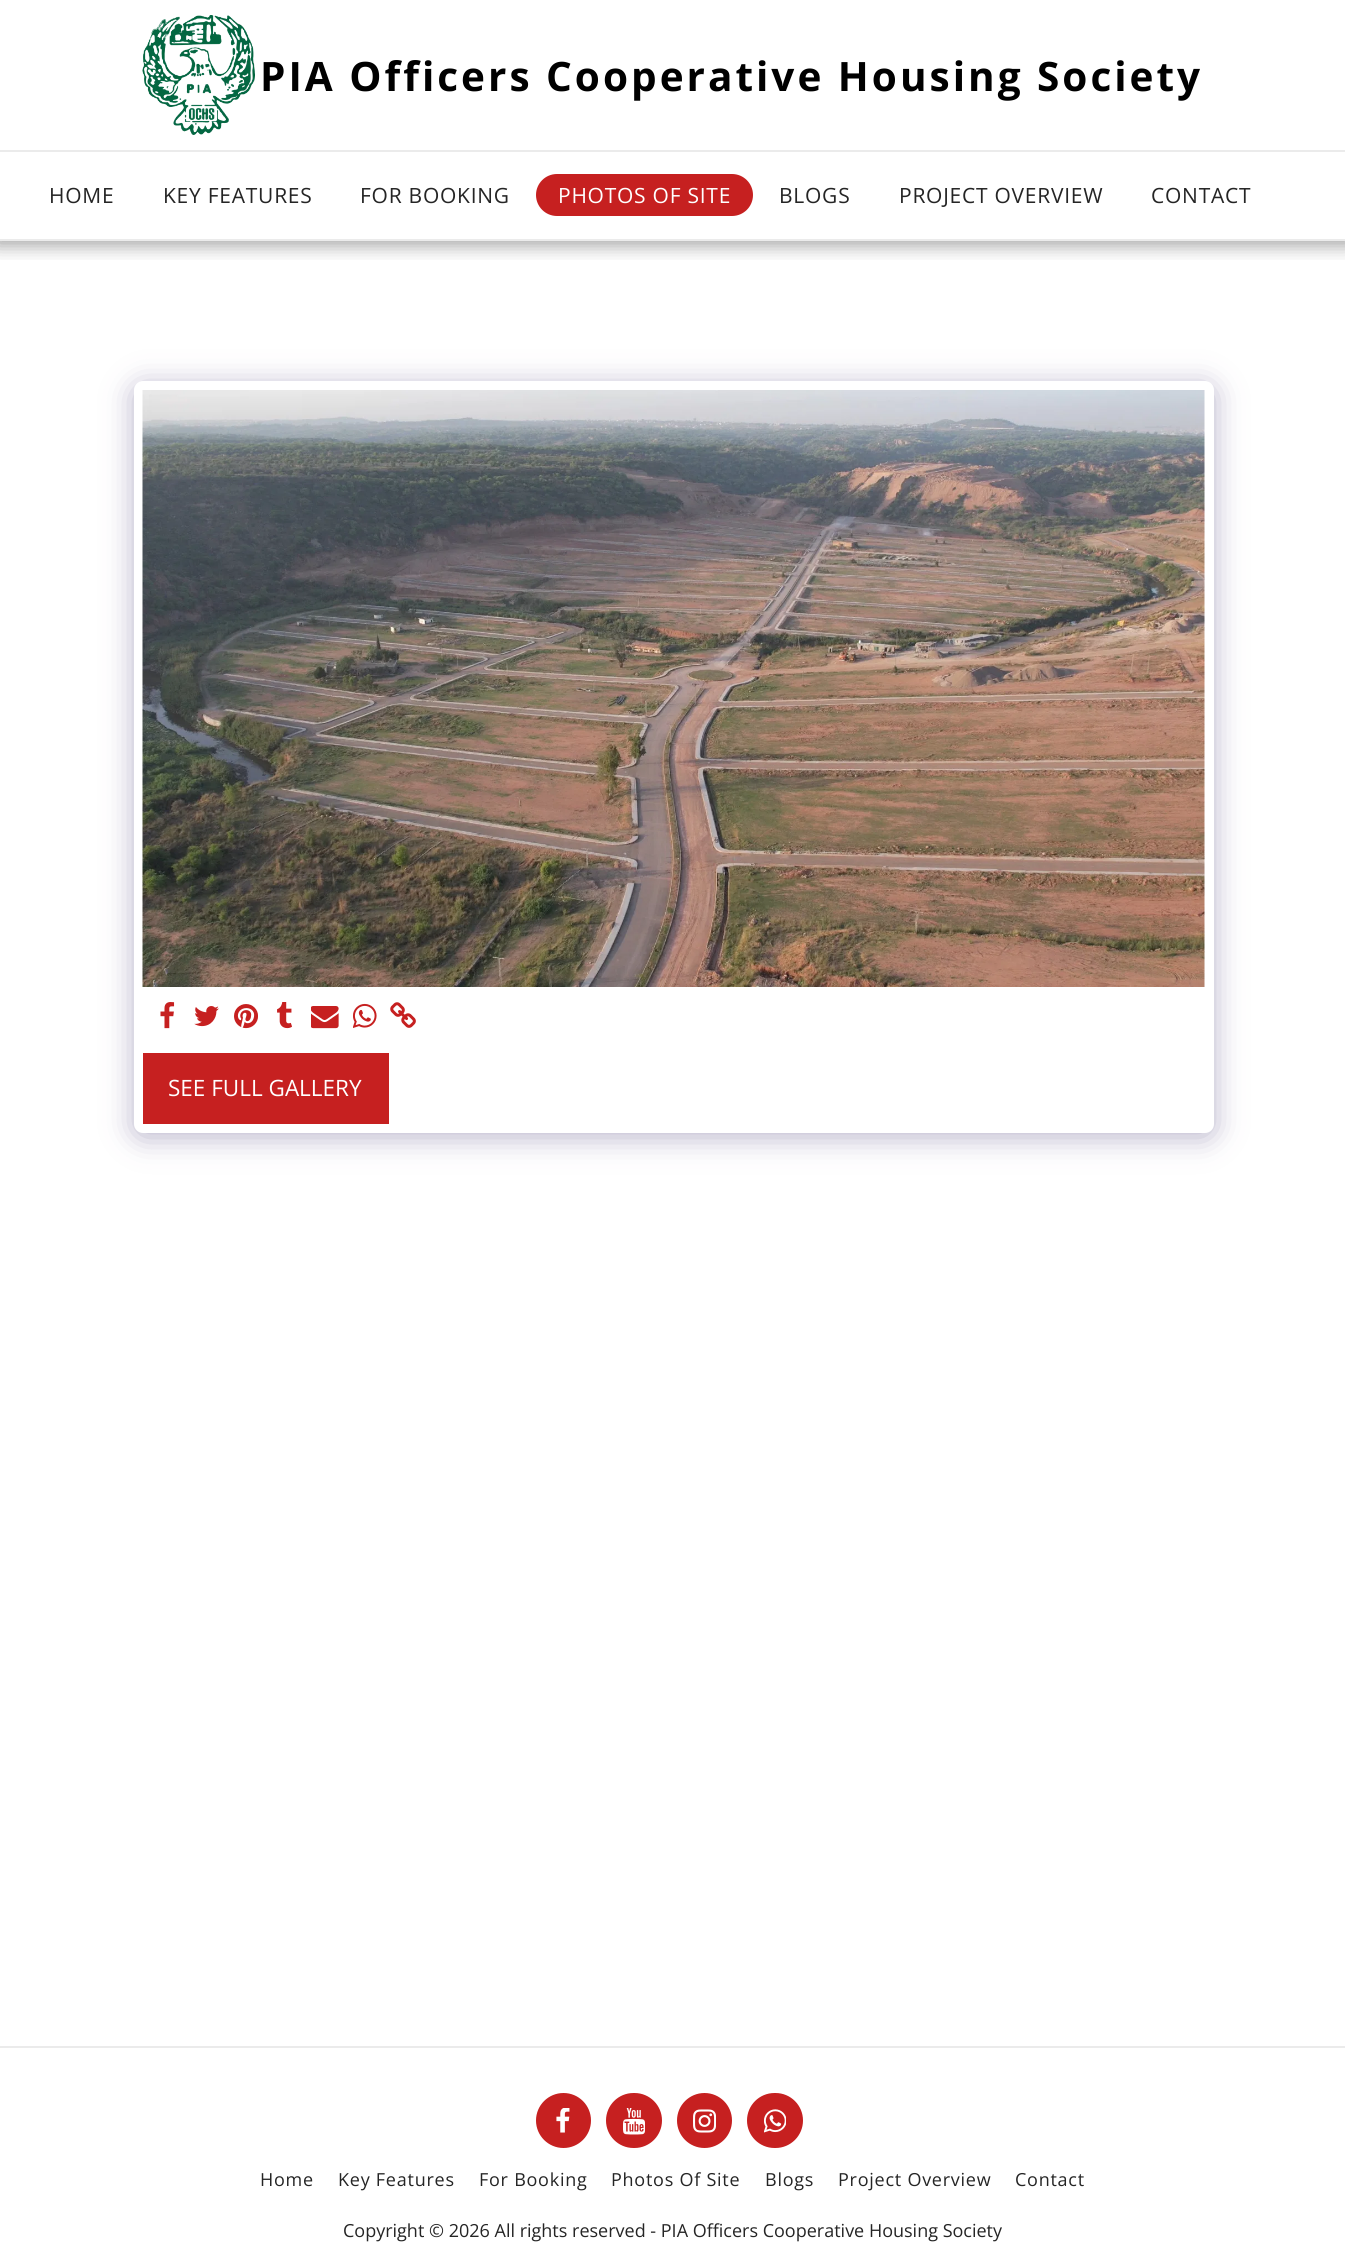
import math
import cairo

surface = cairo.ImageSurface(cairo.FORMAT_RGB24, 1345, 2257)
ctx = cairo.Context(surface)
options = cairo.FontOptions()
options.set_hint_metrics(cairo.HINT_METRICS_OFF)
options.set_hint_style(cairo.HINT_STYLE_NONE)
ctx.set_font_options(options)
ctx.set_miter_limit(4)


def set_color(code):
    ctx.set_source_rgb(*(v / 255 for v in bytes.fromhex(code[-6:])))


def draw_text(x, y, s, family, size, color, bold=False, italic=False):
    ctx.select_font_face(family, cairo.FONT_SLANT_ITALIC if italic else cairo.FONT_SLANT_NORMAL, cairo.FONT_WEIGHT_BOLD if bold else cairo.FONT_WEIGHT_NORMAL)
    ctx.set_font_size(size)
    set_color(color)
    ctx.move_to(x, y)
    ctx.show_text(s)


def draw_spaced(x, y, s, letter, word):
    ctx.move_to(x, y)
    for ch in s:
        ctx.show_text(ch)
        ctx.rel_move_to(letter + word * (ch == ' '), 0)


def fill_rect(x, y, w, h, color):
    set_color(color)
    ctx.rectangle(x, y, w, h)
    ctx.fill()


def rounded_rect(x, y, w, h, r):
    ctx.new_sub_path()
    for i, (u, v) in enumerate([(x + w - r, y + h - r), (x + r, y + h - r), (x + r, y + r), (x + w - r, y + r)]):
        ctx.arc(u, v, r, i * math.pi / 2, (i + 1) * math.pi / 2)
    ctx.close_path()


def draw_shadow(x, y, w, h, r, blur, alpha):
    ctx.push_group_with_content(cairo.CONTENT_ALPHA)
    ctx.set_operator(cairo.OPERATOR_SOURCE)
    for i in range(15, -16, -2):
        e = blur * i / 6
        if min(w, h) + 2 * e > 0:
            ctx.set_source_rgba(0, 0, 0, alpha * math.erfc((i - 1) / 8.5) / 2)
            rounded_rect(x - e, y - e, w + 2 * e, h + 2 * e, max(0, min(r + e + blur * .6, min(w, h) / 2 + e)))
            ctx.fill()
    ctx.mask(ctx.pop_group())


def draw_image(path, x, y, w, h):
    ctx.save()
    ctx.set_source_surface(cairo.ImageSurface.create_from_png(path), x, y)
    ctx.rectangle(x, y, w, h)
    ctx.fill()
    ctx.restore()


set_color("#ffffff")
ctx.paint()
ctx.save()
ctx.rectangle(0, 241, 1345, 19)
ctx.clip()
set_color("#000000")
draw_shadow(-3, 0, 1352, 246, 0, 9, 0.35)
ctx.restore()
fill_rect(0, 239, 1345, 2, "#ebebeb")
draw_image("assets/img1.png", 142, 15, 113, 120)
ctx.select_font_face("Open Sans", cairo.FONT_SLANT_NORMAL, cairo.FONT_WEIGHT_BOLD)
ctx.set_font_size(40.5)
set_color("#000000")
draw_spaced(260, 91, "PIA Officers Cooperative Housing Society", 3, 0)
fill_rect(0, 150, 1345, 2, "#ebebeb")
ctx.select_font_face("Open Sans")
ctx.set_font_size(21)
set_color("#252525")
draw_spaced(49, 203, "HOME", 0.75, 0)
draw_spaced(163, 203, "KEY FEATURES", 0.75, 0)
draw_spaced(360, 203, "FOR BOOKING", 0.75, 0)
set_color("#c62020")
rounded_rect(536, 174, 217, 42, 21)
ctx.fill()
set_color("#ffffff")
draw_spaced(558, 203, "PHOTOS OF SITE", 0.75, 0)
set_color("#252525")
draw_spaced(779, 203, "BLOGS", 0.75, 0)
draw_spaced(899, 203, "PROJECT OVERVIEW", 0.75, 0)
draw_spaced(1151, 203, "CONTACT", 0.75, 0)
set_color("#4d3f7a")
draw_shadow(134, 386, 1080, 751, 9, 15, 0.4)
set_color("#ffffff")
rounded_rect(134, 381, 1080, 752, 9)
ctx.fill()
draw_image("assets/img2.png", 142, 390, 1063, 597)
draw_image("assets/img3.png", 160, 1002, 15, 27)
draw_image("assets/img4.png", 194, 1006, 25, 21)
draw_image("assets/img5.png", 234, 1004, 24, 25)
draw_image("assets/img6.png", 277, 1002, 15, 27)
draw_image("assets/img7.png", 311, 1006, 28, 23)
draw_image("assets/img8.png", 353, 1003, 24, 25)
draw_image("assets/img9.png", 390, 1002, 26, 26)
fill_rect(143, 1053, 246, 71, "#c62020")
draw_text(168, 1096, "SEE FULL GALLERY", "Open Sans", 22.5, "#ffffff")
fill_rect(0, 2046, 1345, 2, "#ebebeb")
set_color("#c62020")
ctx.new_path()
ctx.arc(563.5, 2120.5, 26.5, 0, 2 * math.pi)
ctx.fill_preserve()
ctx.stroke()
draw_image("assets/img10.png", 556, 2108, 14, 25)
rounded_rect(607, 2094, 54, 53, 26.5)
ctx.fill_preserve()
ctx.stroke()
draw_image("assets/img11.png", 623, 2108, 22, 27)
ctx.arc(704.5, 2120.5, 26.5, 0, 2 * math.pi)
ctx.fill_preserve()
ctx.stroke()
draw_image("assets/img12.png", 693, 2109, 23, 24)
rounded_rect(748, 2094, 54, 53, 26.5)
ctx.fill_preserve()
ctx.stroke()
draw_image("assets/img13.png", 764, 2109, 22, 24)
ctx.set_font_size(18)
set_color("#252525")
draw_spaced(260, 2186, "Home", 0.75, 0)
draw_spaced(338, 2186, "Key Features", 0.75, 0)
draw_spaced(479, 2186, "For Booking", 0.75, 0)
draw_spaced(611, 2186, "Photos Of Site", 0.75, 0)
draw_spaced(765, 2186, "Blogs", 0.75, 0)
draw_spaced(838, 2186, "Project Overview", 0.75, 0)
draw_spaced(1015, 2186, "Contact", 0.75, 0)
draw_text(343, 2237, "Copyright © 2026 All rights reserved - PIA Officers Cooperative Housing Society", "Open Sans", 18, "#252525")
surface.write_to_png("output.png")
